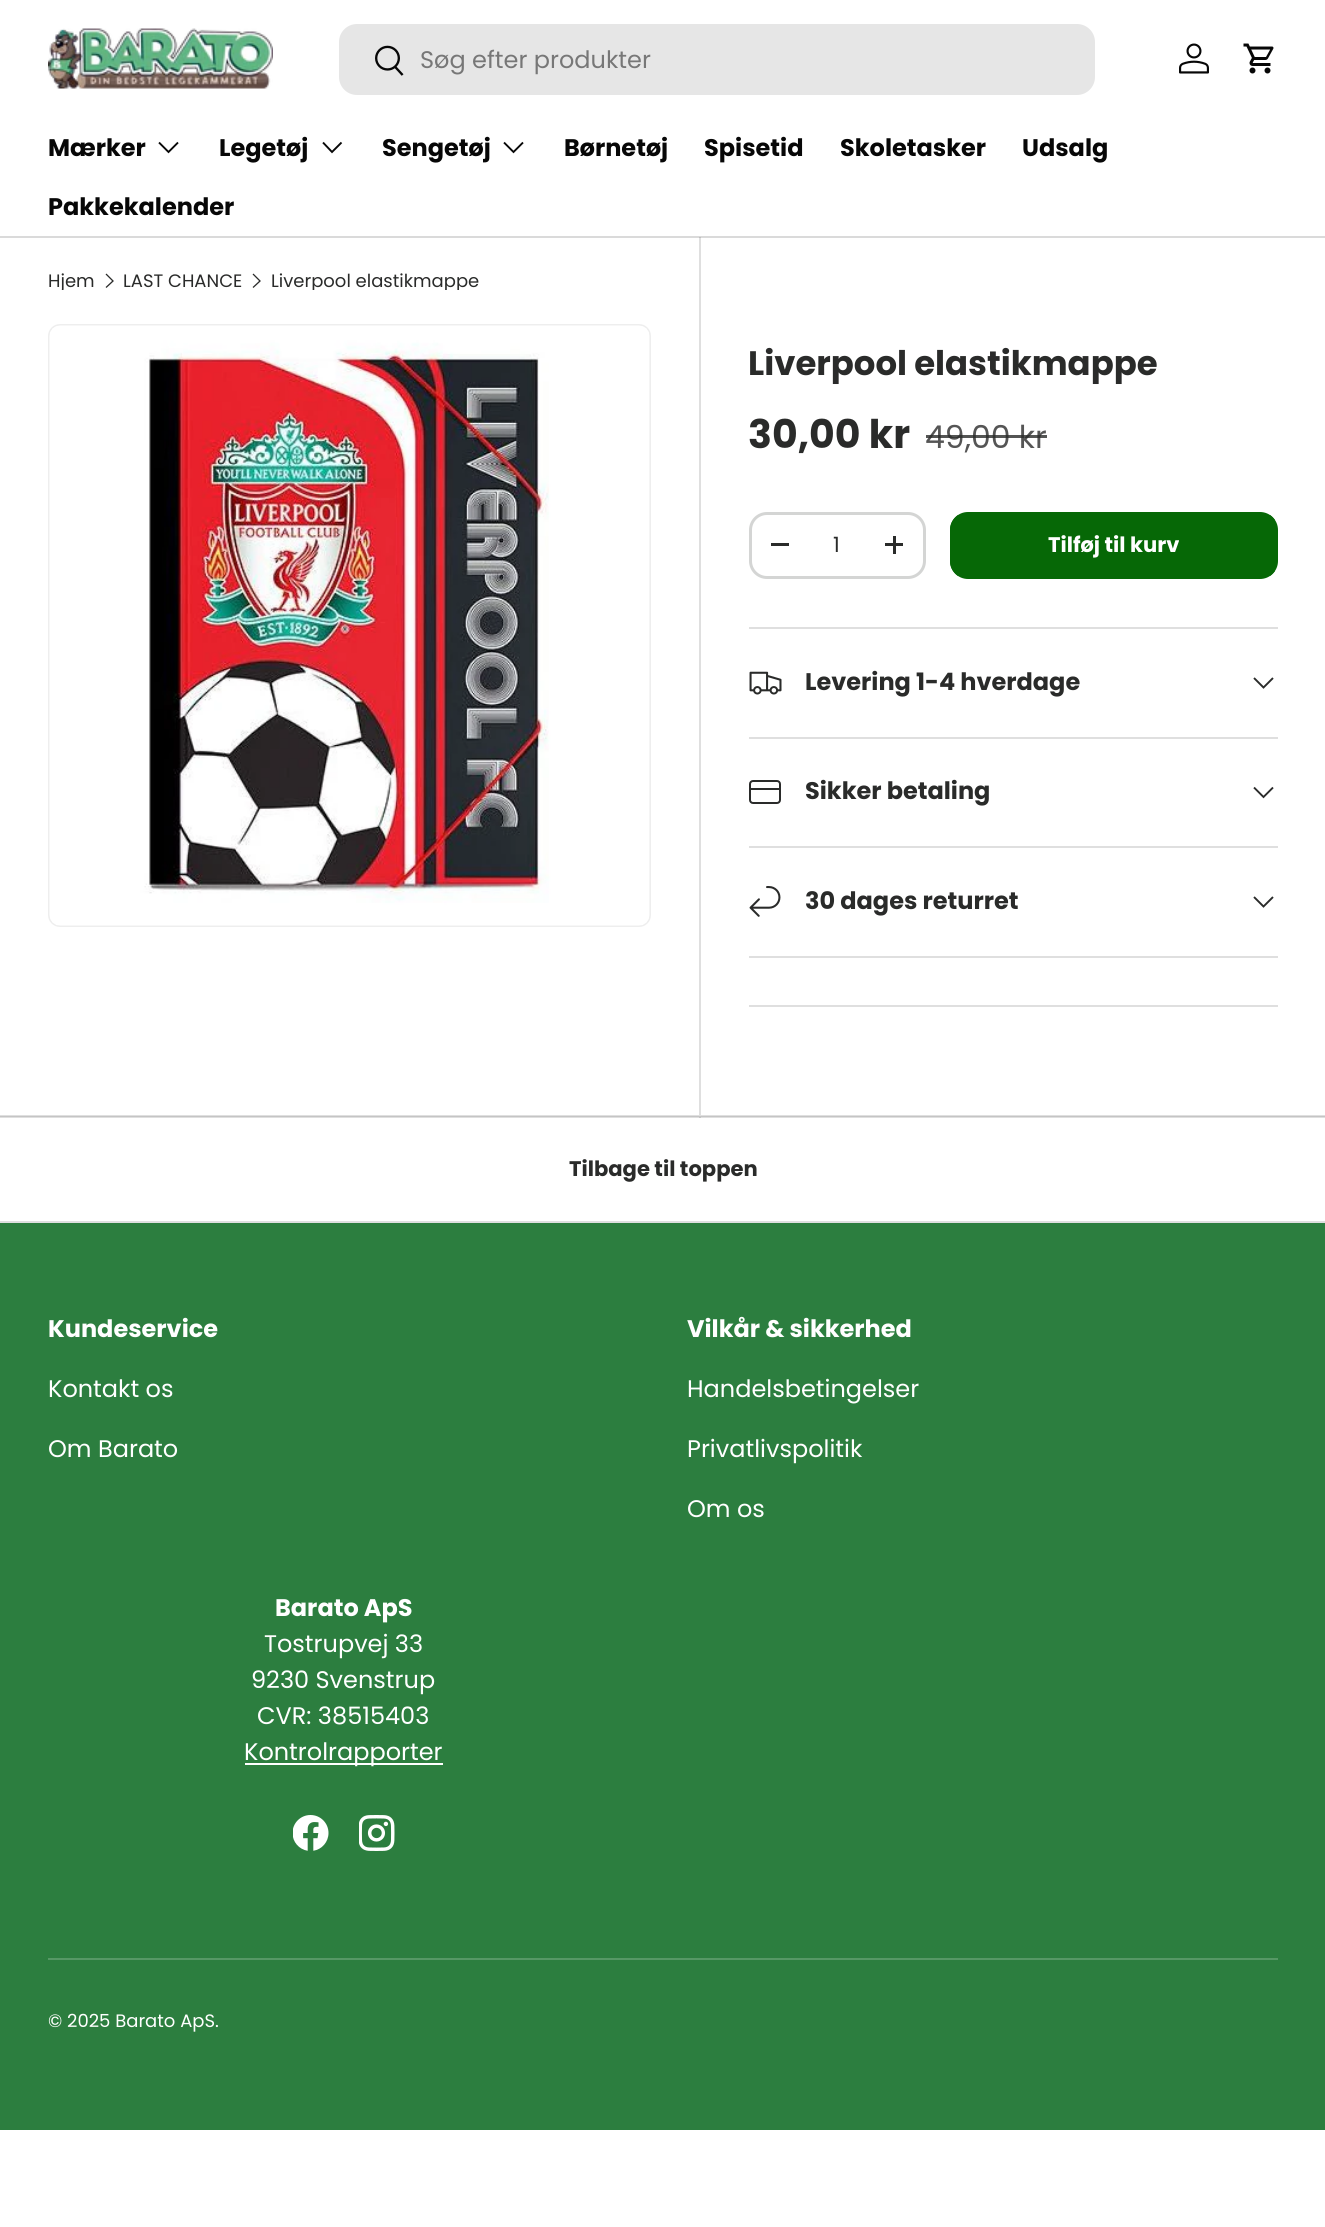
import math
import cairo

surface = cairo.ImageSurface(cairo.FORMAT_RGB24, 1325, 2227)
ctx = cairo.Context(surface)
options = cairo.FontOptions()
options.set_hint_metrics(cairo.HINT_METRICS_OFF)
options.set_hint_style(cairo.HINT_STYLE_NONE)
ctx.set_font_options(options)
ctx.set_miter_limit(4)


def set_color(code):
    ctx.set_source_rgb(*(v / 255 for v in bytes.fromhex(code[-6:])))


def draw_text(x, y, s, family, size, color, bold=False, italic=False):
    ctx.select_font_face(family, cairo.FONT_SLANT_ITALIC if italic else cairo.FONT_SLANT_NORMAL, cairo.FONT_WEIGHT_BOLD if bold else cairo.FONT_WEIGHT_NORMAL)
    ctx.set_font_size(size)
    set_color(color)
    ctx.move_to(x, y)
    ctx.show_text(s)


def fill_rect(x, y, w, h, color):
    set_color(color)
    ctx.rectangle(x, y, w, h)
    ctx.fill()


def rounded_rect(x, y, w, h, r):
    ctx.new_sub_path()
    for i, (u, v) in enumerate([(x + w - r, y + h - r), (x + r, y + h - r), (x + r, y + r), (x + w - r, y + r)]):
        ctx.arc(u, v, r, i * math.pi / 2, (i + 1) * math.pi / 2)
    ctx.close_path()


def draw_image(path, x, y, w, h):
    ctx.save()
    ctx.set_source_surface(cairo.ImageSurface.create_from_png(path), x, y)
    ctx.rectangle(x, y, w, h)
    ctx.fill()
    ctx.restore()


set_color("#ffffff")
ctx.paint()
fill_rect(0, 236, 1325, 2, "#dadada")
fill_rect(0, 1117, 1325, 1, "#dfdfdf")
draw_image("assets/img1.png", 48, 28, 225, 61)
set_color("#e6e6e6")
rounded_rect(339, 24, 756, 71, 18)
ctx.fill()
draw_image("assets/img2.png", 375, 45, 29, 31)
draw_text(420, 68, "Søg efter produkter", "Poppins", 24, "#777777")
draw_image("assets/img3.png", 1179, 43, 30, 31)
draw_image("assets/img4.png", 1243, 43, 31, 31)
draw_text(48, 156, "Mærker", "Poppins", 24, "#070707", bold=True)
ctx.new_path()
ctx.move_to(178, 142.5)
ctx.line_to(168.5, 152)
ctx.line_to(159, 142.5)
ctx.set_line_width(1.9)
ctx.stroke()
draw_text(219, 156, "Legetøj", "Poppins", 24, "#070707", bold=True)
ctx.new_path()
ctx.move_to(341.5, 142.5)
ctx.line_to(332, 152)
ctx.line_to(323, 142.5)
ctx.stroke()
draw_text(382, 156, "Sengetøj", "Poppins", 24, "#070707", bold=True)
ctx.new_path()
ctx.move_to(523, 142.5)
ctx.line_to(513.5, 152)
ctx.line_to(504, 142.5)
ctx.stroke()
draw_text(564, 156, "Børnetøj", "Poppins", 24, "#070707", bold=True)
draw_text(704, 156, "Spisetid", "Poppins", 24, "#070707", bold=True)
draw_text(840, 156, "Skoletasker", "Poppins", 24, "#070707", bold=True)
draw_text(1022, 156, "Udsalg", "Poppins", 24, "#070707", bold=True)
draw_text(48, 215, "Pakkekalender", "Poppins", 24, "#070707", bold=True)
ctx.save()
ctx.rectangle(48, 272, 47, 18)
ctx.clip()
draw_text(48, 287, "Hjem", "Poppins", 18, "#2a2b2a")
ctx.restore()
ctx.new_path()
ctx.move_to(106, 274)
ctx.line_to(113, 281)
ctx.line_to(106, 287.5)
set_color("#2a2b2a")
ctx.set_line_width(1.3)
ctx.stroke()
draw_text(123, 287, "LAST CHANCE", "Poppins", 18, "#2a2b2a")
ctx.new_path()
ctx.move_to(253, 274)
ctx.line_to(260, 281)
ctx.line_to(253, 287.5)
ctx.stroke()
ctx.save()
ctx.rectangle(270, 272, 209, 18)
ctx.clip()
draw_text(271, 287, "Liverpool elastikmappe", "Poppins", 18, "#2a2b2a")
ctx.restore()
rounded_rect(49, 325, 601, 601, 11)
set_color("#eeeeee")
ctx.set_line_width(2)
ctx.stroke()
draw_image("assets/img5.png", 49, 325, 601, 601)
fill_rect(0, 1115, 1325, 1, "#dfdfdf")
fill_rect(0, 1116, 1325, 1, "#c4c4c4")
fill_rect(699, 237, 2, 881, "#dfdfdf")
fill_rect(699, 237, 2, 1, "#bfbfbf")
fill_rect(699, 1116, 2, 2, "#c4c4c4")
draw_text(748, 375, "Liverpool elastikmappe", "Poppins", 33.9, "#2a2b2a", bold=True)
draw_text(748, 448, "30,00 kr", "Poppins", 39.5, "#2a2b2a", bold=True)
draw_text(925, 448, "49,00 kr", "Poppins", 31.5, "#555555")
ctx.set_source_rgba(0.165, 0.169, 0.165, 0.8)
ctx.rectangle(926, 435, 121, 3)
ctx.fill()
rounded_rect(750.5, 513.5, 174, 64, 16.5)
set_color("#d4d5d4")
ctx.set_line_width(3)
ctx.stroke()
fill_rect(771, 543, 18, 3, "#2a2b2a")
draw_text(833, 552, "1", "Poppins", 21.1, "#2a2b2a")
fill_rect(885, 543, 18, 3, "#2a2b2a")
fill_rect(893, 536, 3, 18, "#2a2b2a")
ctx.save()
rounded_rect(950, 512, 328, 67, 18)
ctx.clip()
gradient = cairo.LinearGradient(329, 430, 1254, 661)
gradient.add_color_stop_rgba(0.6, 0.184, 0.541, 0.184, 1)
gradient.add_color_stop_rgba(0.6, 0.024, 0.408, 0.024, 1)
gradient.add_color_stop_rgba(1, 0.024, 0.408, 0.024, 1)
ctx.set_source(gradient)
ctx.rectangle(950, 515, 325, 61)
ctx.fill()
ctx.restore()
rounded_rect(951.5, 513.5, 325, 64, 16.5)
set_color("#066806")
ctx.stroke()
draw_text(1048, 552, "Tilføj til kurv", "Poppins", 21.1, "#ffffff", bold=True)
fill_rect(749, 627, 529, 2, "#dfdfdf")
fill_rect(749, 737, 529, 2, "#dfdfdf")
draw_image("assets/img6.png", 749, 671, 33, 24)
draw_text(805, 690, "Levering 1-4 hverdage", "Poppins", 24, "#2a2b2a", bold=True)
ctx.new_path()
ctx.move_to(1273, 678)
ctx.line_to(1263.5, 687.5)
ctx.line_to(1254, 678)
ctx.set_line_width(1.9)
ctx.stroke()
fill_rect(749, 846, 529, 2, "#dfdfdf")
rounded_rect(750, 781, 30, 22, 3)
set_color("#2a2b2a")
ctx.set_line_width(2)
ctx.stroke()
fill_rect(751, 788, 29, 2, "#2a2b2a")
draw_text(805, 799, "Sikker betaling", "Poppins", 24, "#2a2b2a", bold=True)
ctx.new_path()
ctx.move_to(1273, 787.5)
ctx.line_to(1263.5, 797)
ctx.line_to(1254, 787.5)
ctx.set_line_width(1.9)
ctx.stroke()
fill_rect(749, 956, 529, 2, "#dfdfdf")
draw_image("assets/img7.png", 749, 886, 32, 31)
draw_text(805, 909, "30 dages returret", "Poppins", 24, "#2a2b2a", bold=True)
ctx.new_path()
ctx.move_to(1273, 897)
ctx.line_to(1263.5, 906.5)
ctx.line_to(1254, 897)
ctx.stroke()
fill_rect(749, 1005, 529, 2, "#dfdfdf")
fill_rect(0, 1221, 1325, 2, "#dfdfdf")
draw_text(569, 1176, "Tilbage til toppen", "Poppins", 21.1, "#2a2b2a", bold=True)
fill_rect(0, 1223, 1325, 907, "#2c7e3f")
draw_text(48, 1337, "Kundeservice", "Poppins", 24, "#ffffff", bold=True)
draw_text(48, 1397, "Kontakt os", "Poppins", 24, "#ffffff")
draw_text(48, 1457, "Om Barato", "Poppins", 24, "#ffffff")
draw_text(687, 1337, "Vilkår & sikkerhed", "Poppins", 24, "#ffffff", bold=True)
draw_text(687, 1397, "Handelsbetingelser", "Poppins", 24, "#ffffff")
draw_text(687, 1457, "Privatlivspolitik", "Poppins", 24, "#ffffff")
draw_text(687, 1517, "Om os", "Poppins", 24, "#ffffff")
draw_text(275, 1616, "Barato ApS", "Poppins", 24, "#ffffff", bold=True)
draw_text(264, 1652, "Tostrupvej 33", "Poppins", 24, "#ffffff")
draw_text(251, 1688, "9230 Svenstrup", "Poppins", 24, "#ffffff")
draw_text(257, 1724, "CVR: 38515403", "Poppins", 24, "#ffffff")
fill_rect(245, 1763, 198, 2, "#ffffff")
draw_text(244, 1760, "Kontrolrapporter", "Poppins", 24, "#ffffff")
draw_image("assets/img8.png", 293, 1815, 36, 36)
draw_image("assets/img9.png", 359, 1815, 36, 36)
fill_rect(48, 1958, 1230, 2, "#569865")
draw_text(48, 2027, "© 2025 Barato ApS.", "Poppins", 18, "#ffffff")
surface.write_to_png("output.png")
